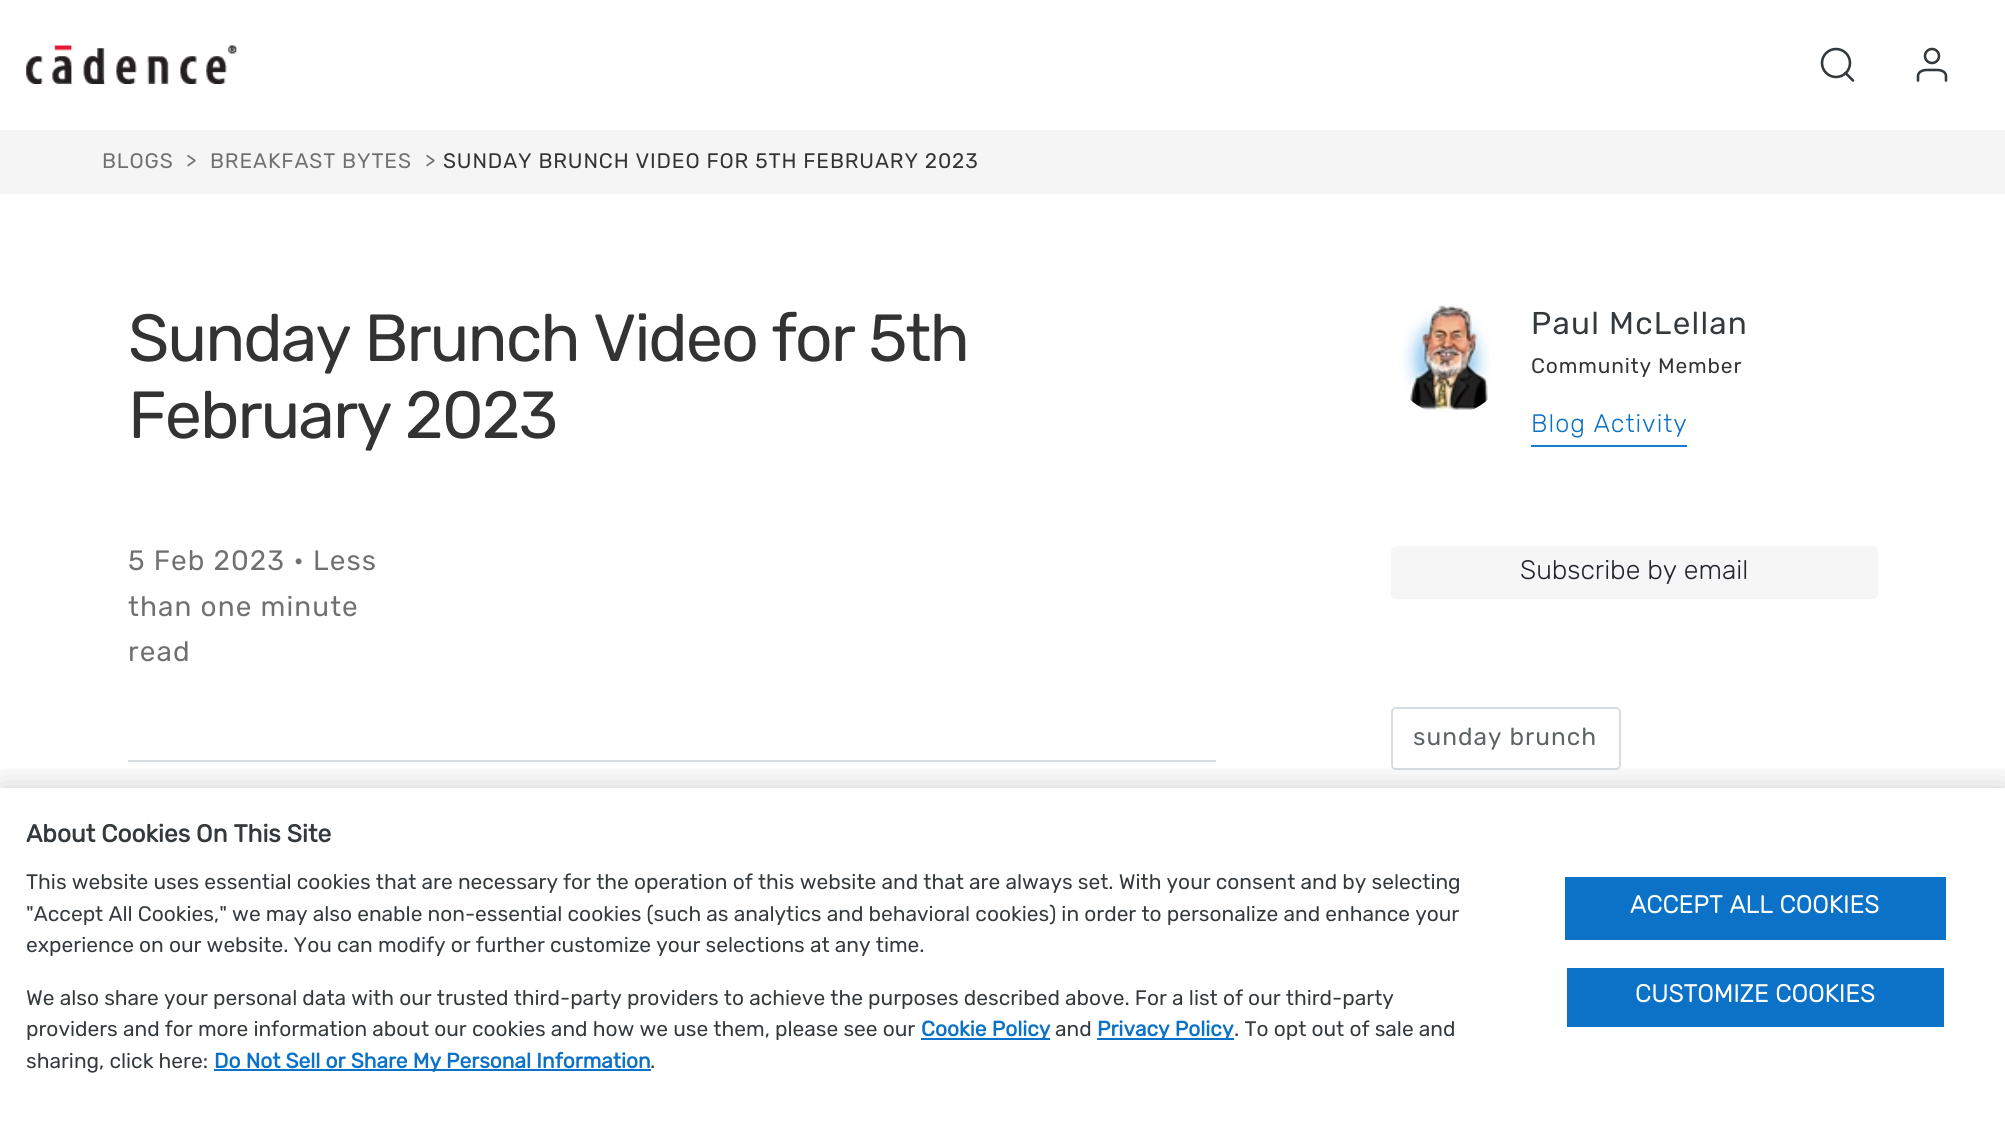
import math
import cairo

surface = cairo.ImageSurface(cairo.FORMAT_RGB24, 2005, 1136)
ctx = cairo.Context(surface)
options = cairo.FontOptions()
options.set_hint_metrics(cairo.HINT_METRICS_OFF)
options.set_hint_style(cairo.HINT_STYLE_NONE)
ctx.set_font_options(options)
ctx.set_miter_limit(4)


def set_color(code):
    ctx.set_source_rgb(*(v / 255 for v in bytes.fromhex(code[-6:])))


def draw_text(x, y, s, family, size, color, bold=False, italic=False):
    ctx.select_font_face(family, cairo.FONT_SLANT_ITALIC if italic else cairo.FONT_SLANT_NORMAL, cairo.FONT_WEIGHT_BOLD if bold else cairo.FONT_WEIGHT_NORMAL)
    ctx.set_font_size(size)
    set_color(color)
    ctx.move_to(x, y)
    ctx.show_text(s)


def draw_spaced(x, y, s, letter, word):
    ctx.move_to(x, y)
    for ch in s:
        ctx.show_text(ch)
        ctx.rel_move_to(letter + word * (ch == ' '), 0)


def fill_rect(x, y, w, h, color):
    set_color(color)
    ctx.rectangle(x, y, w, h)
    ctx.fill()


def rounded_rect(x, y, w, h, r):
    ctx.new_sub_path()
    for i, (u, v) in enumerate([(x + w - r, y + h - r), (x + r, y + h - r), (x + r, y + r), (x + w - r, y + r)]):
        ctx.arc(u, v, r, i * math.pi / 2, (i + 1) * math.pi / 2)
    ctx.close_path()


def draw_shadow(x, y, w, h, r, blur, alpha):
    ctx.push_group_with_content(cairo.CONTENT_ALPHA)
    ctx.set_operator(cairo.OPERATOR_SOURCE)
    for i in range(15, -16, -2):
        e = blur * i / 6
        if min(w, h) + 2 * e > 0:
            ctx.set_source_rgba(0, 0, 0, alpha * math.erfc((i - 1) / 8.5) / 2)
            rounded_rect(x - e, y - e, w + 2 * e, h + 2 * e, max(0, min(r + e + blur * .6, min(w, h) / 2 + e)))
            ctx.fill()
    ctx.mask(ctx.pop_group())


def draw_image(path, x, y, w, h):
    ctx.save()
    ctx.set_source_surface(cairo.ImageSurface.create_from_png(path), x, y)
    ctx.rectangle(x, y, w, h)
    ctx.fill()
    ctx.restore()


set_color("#ffffff")
ctx.paint()
draw_image("assets/img1.png", 26, 45, 211, 39)
ctx.arc(1836, 63, 14, 0, 2 * math.pi)
set_color("#33393d")
ctx.set_line_width(2.6)
ctx.stroke()
ctx.new_path()
ctx.move_to(1853, 80.5)
ctx.line_to(1845.5, 73)
ctx.set_line_cap(cairo.LINE_CAP_ROUND)
ctx.set_line_join(cairo.LINE_JOIN_ROUND)
ctx.stroke()
ctx.new_path()
ctx.move_to(1946, 80.5)
ctx.line_to(1946, 75.5)
ctx.curve_to(1944.5, 69, 1937, 70, 1932, 70)
ctx.curve_to(1927, 70, 1919.5, 69, 1918, 75.5)
ctx.line_to(1918, 80.5)
ctx.stroke()
ctx.arc(1932, 56, 7, 0, 2 * math.pi)
ctx.set_line_cap(cairo.LINE_CAP_BUTT)
ctx.set_line_join(cairo.LINE_JOIN_MITER)
ctx.stroke()
fill_rect(0, 130, 2005, 64, "#f5f5f5")
ctx.select_font_face("Rubik")
ctx.set_font_size(21)
set_color("#707070")
draw_spaced(102, 168, "BLOGS", 0.85, 0)
draw_spaced(186, 168, ">", 0.85, 0)
draw_spaced(210, 168, "BREAKFAST BYTES", 0.85, 0)
draw_spaced(425, 168, ">", 0.85, 0)
set_color("#333333")
draw_spaced(443, 168, "SUNDAY BRUNCH VIDEO FOR 5TH FEBRUARY 2023", 0.85, 0)
ctx.set_font_size(66.5)
draw_spaced(128, 361, "Sunday Brunch Video for 5th", -2, 0)
draw_spaced(128, 438, "February 2023", -2, 0)
fill_rect(128, 760, 1088, 2, "#d7dde0")
ctx.set_font_size(28)
set_color("#707070")
draw_spaced(128, 570, "5 Feb 2023 • Less", 1.1, 0)
draw_spaced(128, 616, "than one minute", 1.1, 0)
draw_spaced(128, 661, "read", 1.1, 0)
draw_image("assets/img2.png", 1403, 304, 87, 108)
ctx.set_font_size(31.5)
set_color("#33393d")
draw_spaced(1531, 334, "Paul McLellan", 1.25, 0)
ctx.set_font_size(21)
set_color("#333333")
draw_spaced(1531, 373, "Community Member", 0.85, 0)
ctx.select_font_face("Rubik Light")
ctx.set_font_size(25.25)
set_color("#0c72c7")
draw_spaced(1531, 432, "Blog Activity", 1, 0)
fill_rect(1531, 445, 156, 2, "#147bd1")
set_color("#f6f6f7")
rounded_rect(1391, 546, 487, 53, 5)
ctx.fill()
draw_text(1520, 579, "Subscribe by email", "Rubik Light", 26.75, "#22252c")
rounded_rect(1392, 708, 228, 61, 4)
set_color("#d7dde0")
ctx.set_line_width(2)
ctx.stroke()
ctx.select_font_face("Rubik")
ctx.set_font_size(24.5)
set_color("#5e6366")
draw_spaced(1413, 745, "sunday brunch", 1, 0)
ctx.save()
ctx.rectangle(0, 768, 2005, 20)
ctx.clip()
set_color("#000000")
draw_shadow(0, 788, 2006, 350, 0, 16, 0.2)
ctx.restore()
draw_text(26, 842, "About Cookies On This Site", "Rubik", 24.5, "#33393d", bold=True)
draw_text(26, 889, "This website uses essential cookies that are necessary for the operation of this website and that are always set. With your consent and by selecting", "Rubik", 21, "#33393d")
draw_text(26, 921, "\"Accept All Cookies,\" we may also enable non-essential cookies (such as analytics and behavioral cookies) in order to personalize and enhance your", "Rubik", 21, "#33393d")
draw_text(26, 952, "experience on our website. You can modify or further customize your selections at any time.", "Rubik", 21, "#33393d")
draw_text(26, 1005, "We also share your personal data with our trusted third-party providers to achieve the purposes described above. For a list of our third-party", "Rubik", 21, "#33393d")
draw_text(26, 1036, "providers and for more information about our cookies and how we use them, please see our", "Rubik", 21, "#33393d")
fill_rect(921, 1038, 129, 2, "#0c72c7")
draw_text(921, 1036, "Cookie Policy", "Rubik", 21, "#0c72c7", bold=True)
draw_text(1055, 1036, "and", "Rubik", 21, "#33393d")
fill_rect(1097, 1038, 137, 2, "#0c72c7")
draw_text(1097, 1036, "Privacy Policy", "Rubik", 21, "#0c72c7", bold=True)
draw_text(1234, 1036, ". To opt out of sale and", "Rubik", 21, "#33393d")
draw_text(26, 1068, "sharing, click here:", "Rubik", 21, "#33393d")
fill_rect(214, 1069, 437, 2, "#0c72c7")
draw_text(214, 1068, "Do Not Sell or Share My Personal Information", "Rubik", 21, "#0c72c7", bold=True)
draw_text(650, 1068, ".", "Rubik", 21, "#33393d")
fill_rect(1565, 877, 381, 63, "#0c72c7")
ctx.select_font_face("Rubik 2", cairo.FONT_SLANT_NORMAL, cairo.FONT_WEIGHT_BOLD)
ctx.set_font_size(24.5)
set_color("#ffffff")
draw_spaced(1630, 913, "ACCEPT ALL COOKIES", 0.25, 0)
fill_rect(1567, 968, 377, 59, "#0c72c7")
set_color("#ffffff")
draw_spaced(1635, 1002, "CUSTOMIZE COOKIES", 0.25, 0)
surface.write_to_png("output.png")
